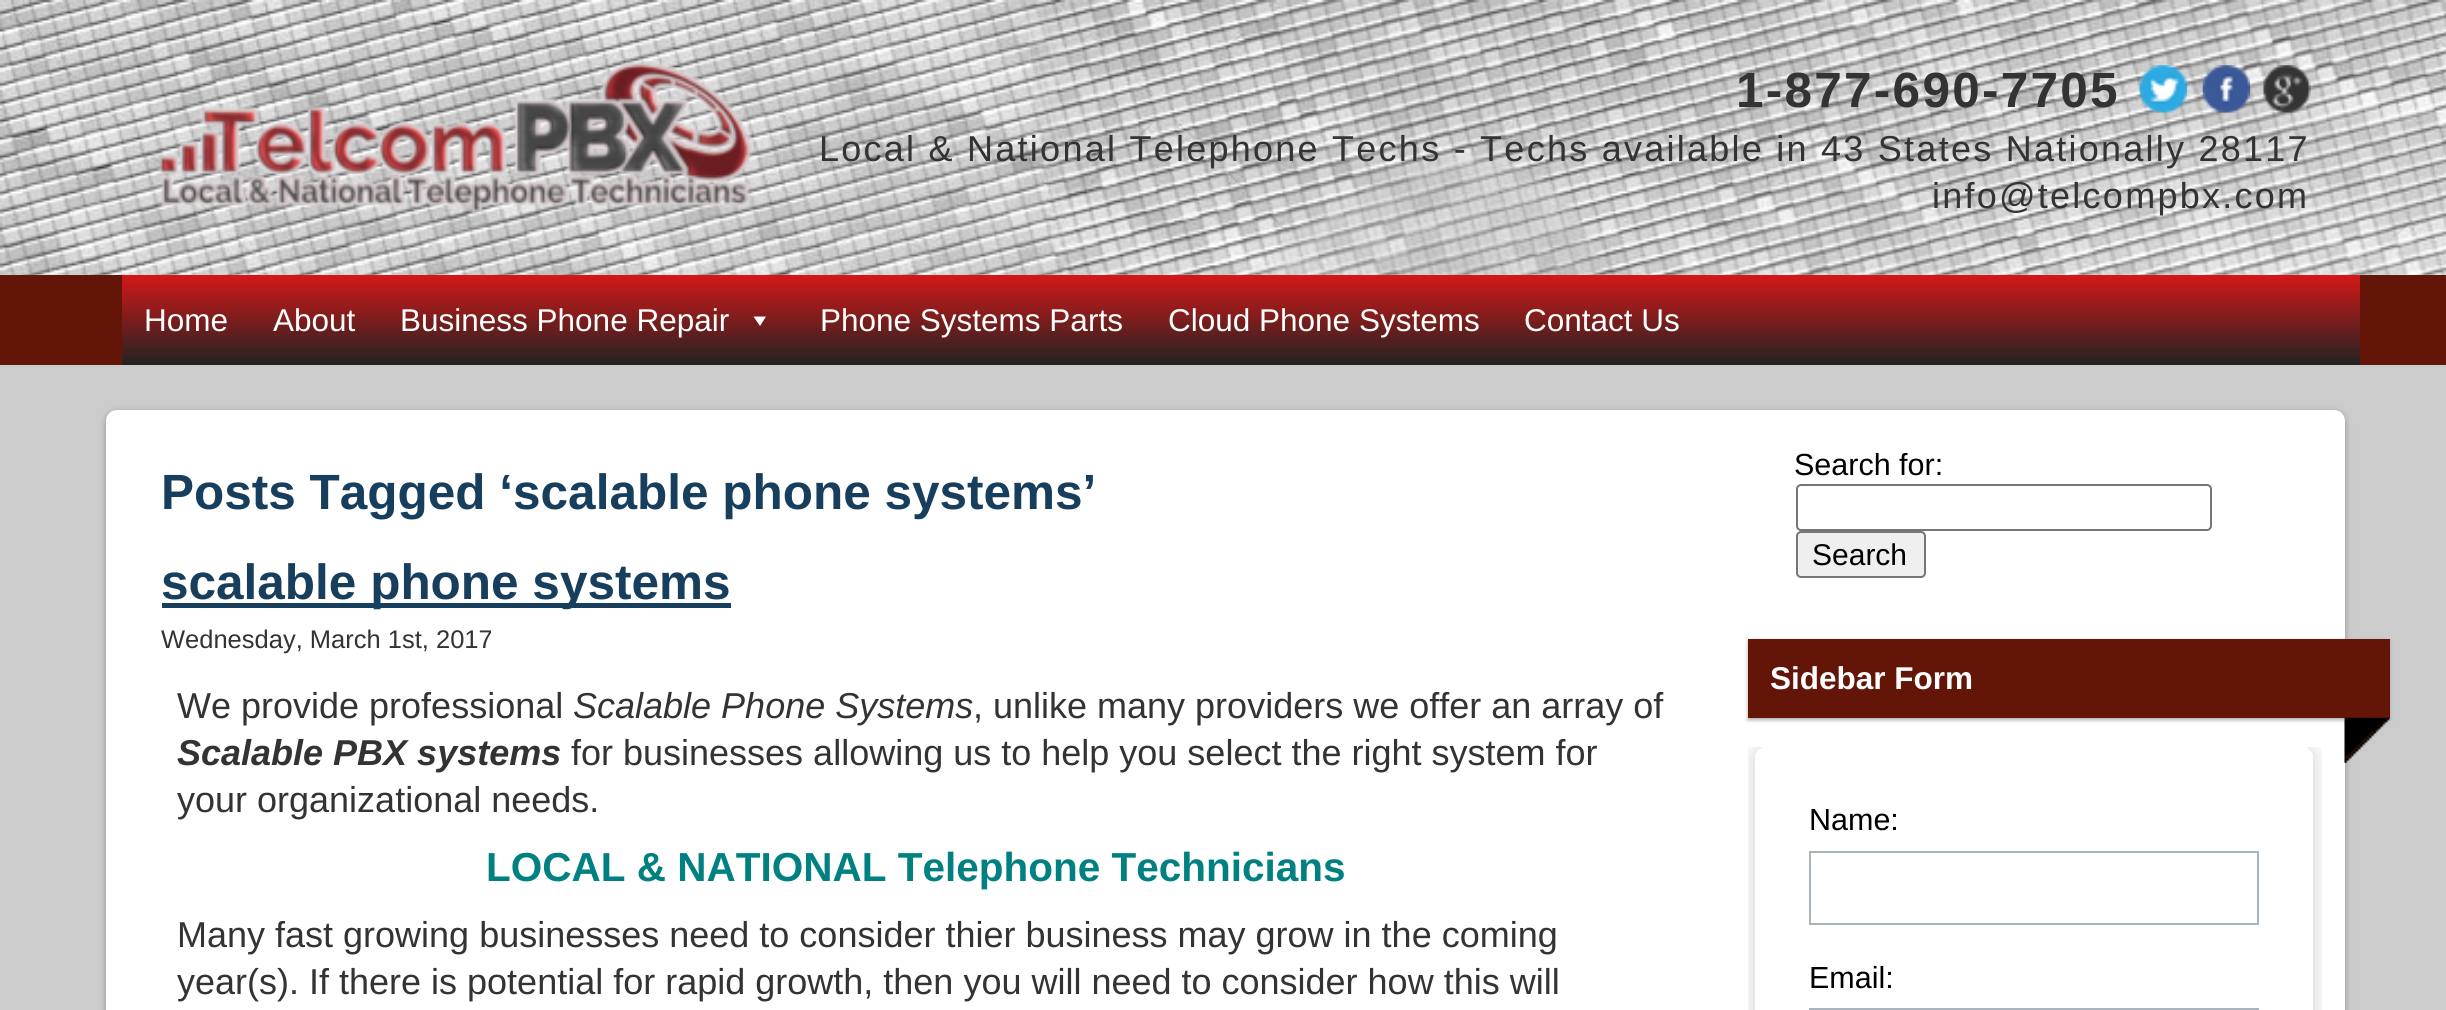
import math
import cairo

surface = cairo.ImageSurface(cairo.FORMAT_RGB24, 2446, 1010)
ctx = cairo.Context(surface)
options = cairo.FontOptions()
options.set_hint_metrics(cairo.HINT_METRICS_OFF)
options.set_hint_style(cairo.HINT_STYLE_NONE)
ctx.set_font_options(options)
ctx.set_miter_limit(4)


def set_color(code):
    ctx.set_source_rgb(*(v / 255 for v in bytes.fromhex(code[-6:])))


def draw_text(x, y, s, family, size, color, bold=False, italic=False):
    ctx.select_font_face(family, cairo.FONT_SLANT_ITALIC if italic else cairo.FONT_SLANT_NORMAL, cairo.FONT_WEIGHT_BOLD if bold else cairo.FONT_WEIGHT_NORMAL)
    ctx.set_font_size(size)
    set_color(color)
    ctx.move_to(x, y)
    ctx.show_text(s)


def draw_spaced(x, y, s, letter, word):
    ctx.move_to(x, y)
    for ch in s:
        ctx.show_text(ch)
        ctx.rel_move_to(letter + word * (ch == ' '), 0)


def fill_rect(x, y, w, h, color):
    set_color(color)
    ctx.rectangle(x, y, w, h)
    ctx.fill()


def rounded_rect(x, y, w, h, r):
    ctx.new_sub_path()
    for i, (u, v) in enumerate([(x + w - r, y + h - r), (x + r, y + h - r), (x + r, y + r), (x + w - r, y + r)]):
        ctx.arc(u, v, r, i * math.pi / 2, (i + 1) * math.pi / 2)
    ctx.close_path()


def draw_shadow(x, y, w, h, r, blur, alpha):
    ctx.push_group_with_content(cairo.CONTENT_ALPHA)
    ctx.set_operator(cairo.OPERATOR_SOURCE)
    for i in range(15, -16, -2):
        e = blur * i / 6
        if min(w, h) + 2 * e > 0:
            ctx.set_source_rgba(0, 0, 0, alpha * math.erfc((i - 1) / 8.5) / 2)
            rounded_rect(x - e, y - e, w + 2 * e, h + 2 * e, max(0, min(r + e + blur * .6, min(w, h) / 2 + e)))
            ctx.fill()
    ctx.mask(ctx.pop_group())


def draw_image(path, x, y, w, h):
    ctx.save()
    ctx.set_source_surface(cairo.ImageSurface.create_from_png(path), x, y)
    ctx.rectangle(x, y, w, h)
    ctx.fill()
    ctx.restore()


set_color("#ffffff")
ctx.paint()
draw_image("assets/img1.png", 0, 0, 2446, 275)
draw_image("assets/img2.png", 159, 60, 593, 154)
ctx.select_font_face("Liberation Sans", cairo.FONT_SLANT_NORMAL, cairo.FONT_WEIGHT_BOLD)
ctx.set_font_size(49.5)
set_color("#333333")
draw_spaced(1736, 107, "1-877-690-7705", 2.25, 0)
draw_image("assets/img3.png", 2139, 65, 48, 48)
draw_image("assets/img4.png", 2202, 65, 48, 48)
draw_image("assets/img5.png", 2263, 65, 48, 48)
ctx.select_font_face("Liberation Sans")
ctx.set_font_size(36)
draw_spaced(819, 161, "Local & National Telephone Techs - Techs available in 43 States Nationally 28117", 2.25, 0)
draw_spaced(1932, 208, "info@telcompbx.com", 2.25, 0)
fill_rect(0, 275, 2446, 90, "#631607")
gradient = cairo.LinearGradient(1241, 274, 1241, 365)
gradient.add_color_stop_rgba(0, 0.839, 0.094, 0.094, 1)
gradient.add_color_stop_rgba(1, 0.133, 0.133, 0.133, 1)
ctx.set_source(gradient)
ctx.rectangle(122, 275, 2238, 90)
ctx.fill()
draw_text(144, 331, "Home", "Liberation Sans", 31.5, "#ffffff")
draw_text(273, 331, "About", "Liberation Sans", 31.5, "#ffffff")
draw_text(400, 331, "Business Phone Repair", "Liberation Sans", 31.5, "#ffffff")
ctx.new_path()
ctx.move_to(766, 316.5)
ctx.line_to(760, 326)
ctx.line_to(753.5, 316.5)
ctx.close_path()
ctx.fill()
draw_text(820, 331, "Phone Systems Parts", "Liberation Sans", 31.5, "#ffffff")
draw_text(1168, 331, "Cloud Phone Systems", "Liberation Sans", 31.5, "#ffffff")
draw_text(1524, 331, "Contact Us", "Liberation Sans", 31.5, "#ffffff")
fill_rect(0, 365, 2446, 645, "#cccccc")
set_color("#000000")
draw_shadow(106, 412, 2239, 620, 11, 3.5, 0.3)
set_color("#ffffff")
rounded_rect(106, 410, 2239, 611, 11)
ctx.fill()
draw_text(161, 509, "Posts Tagged ‘scalable phone systems’", "Liberation Sans", 49.5, "#173e5c", bold=True)
fill_rect(162, 603, 569, 5, "#173e5c")
draw_text(161, 599, "scalable phone systems", "Liberation Sans", 49.5, "#173e5c", bold=True)
draw_text(161, 648, "Wednesday, March 1st, 2017", "Liberation Sans", 25.5, "#333333")
draw_text(177, 718, "We provide professional", "Liberation Sans", 36, "#333333")
draw_text(573, 718, "Scalable Phone Systems", "Liberation Sans", 36, "#333333", italic=True)
draw_text(973, 718, ", unlike many providers we offer an array of", "Liberation Sans", 36, "#333333")
draw_text(177, 765, "Scalable PBX systems", "Liberation Sans", 36, "#333333", bold=True, italic=True)
draw_text(571, 765, "for businesses allowing us to help you select the right system for", "Liberation Sans", 36, "#333333")
draw_text(177, 812, "your organizational needs.", "Liberation Sans", 36, "#333333")
draw_text(486, 881, "LOCAL & NATIONAL Telephone Technicians", "Liberation Sans", 40.5, "#008080", bold=True)
draw_text(177, 947, "Many fast growing businesses need to consider thier business may grow in the coming", "Liberation Sans", 36, "#333333")
draw_text(177, 994, "year(s). If there is potential for rapid growth, then you will need to consider how this will", "Liberation Sans", 36, "#333333")
draw_text(1794, 475, "Search for:", "Liberation Sans", 30.5, "#000000")
rounded_rect(1797, 485, 414, 45, 4)
set_color("#767676")
ctx.stroke()
set_color("#efefef")
rounded_rect(1797, 532, 128, 45, 4)
ctx.fill_preserve()
set_color("#767676")
ctx.stroke()
draw_text(1812, 565, "Search", "Liberation Sans", 30, "#000000")
set_color("#aaaaaa")
draw_shadow(1748, 641, 642, 79, 0, 2, 1)
fill_rect(1748, 639, 642, 79, "#631607")
draw_text(1770, 689, "Sidebar Form", "Liberation Sans", 31.5, "#ffffff", bold=True)
ctx.save()
ctx.rectangle(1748, 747, 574, 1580)
ctx.clip()
ctx.set_fill_rule(cairo.FILL_RULE_EVEN_ODD)
ctx.new_path()
ctx.move_to(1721, 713)
ctx.line_to(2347, 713)
ctx.line_to(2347, 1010)
ctx.line_to(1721, 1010)
ctx.close_path()
ctx.move_to(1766, 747)
ctx.line_to(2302, 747)
ctx.curve_to(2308, 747, 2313, 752, 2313, 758)
ctx.line_to(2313, 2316)
ctx.curve_to(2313, 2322, 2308, 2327, 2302, 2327)
ctx.line_to(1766, 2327)
ctx.curve_to(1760, 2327, 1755, 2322, 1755, 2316)
ctx.line_to(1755, 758)
ctx.curve_to(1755, 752, 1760, 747, 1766, 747)
ctx.close_path()
ctx.clip()
set_color("#000000")
draw_shadow(1755, 747, 558, 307, 11, 11, 0.2)
ctx.restore()
draw_image("assets/img6.png", 2344, 717, 46, 46)
rounded_rect(1759.5, 751.5, 549, 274, 6.5)
ctx.set_line_width(9)
ctx.stroke()
draw_text(1809, 830, "Name:", "Liberation Sans", 30.5, "#000000")
ctx.rectangle(1810, 852, 448, 72)
set_color("#a9b3bc")
ctx.set_line_width(2)
ctx.stroke()
draw_text(1809, 988, "Email:", "Liberation Sans", 30.5, "#000000")
ctx.rectangle(1810, 1009, 448, 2)
set_color("#a9b3bc")
ctx.stroke()
surface.write_to_png("output.png")
